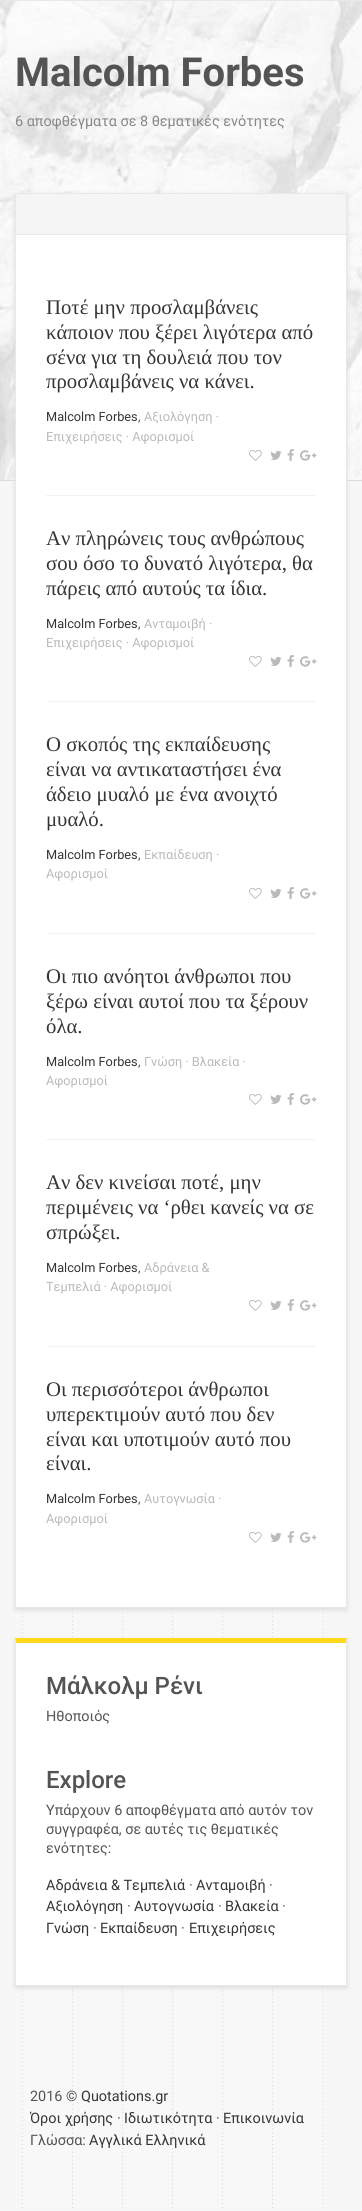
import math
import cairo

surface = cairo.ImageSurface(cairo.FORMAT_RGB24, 362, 2211)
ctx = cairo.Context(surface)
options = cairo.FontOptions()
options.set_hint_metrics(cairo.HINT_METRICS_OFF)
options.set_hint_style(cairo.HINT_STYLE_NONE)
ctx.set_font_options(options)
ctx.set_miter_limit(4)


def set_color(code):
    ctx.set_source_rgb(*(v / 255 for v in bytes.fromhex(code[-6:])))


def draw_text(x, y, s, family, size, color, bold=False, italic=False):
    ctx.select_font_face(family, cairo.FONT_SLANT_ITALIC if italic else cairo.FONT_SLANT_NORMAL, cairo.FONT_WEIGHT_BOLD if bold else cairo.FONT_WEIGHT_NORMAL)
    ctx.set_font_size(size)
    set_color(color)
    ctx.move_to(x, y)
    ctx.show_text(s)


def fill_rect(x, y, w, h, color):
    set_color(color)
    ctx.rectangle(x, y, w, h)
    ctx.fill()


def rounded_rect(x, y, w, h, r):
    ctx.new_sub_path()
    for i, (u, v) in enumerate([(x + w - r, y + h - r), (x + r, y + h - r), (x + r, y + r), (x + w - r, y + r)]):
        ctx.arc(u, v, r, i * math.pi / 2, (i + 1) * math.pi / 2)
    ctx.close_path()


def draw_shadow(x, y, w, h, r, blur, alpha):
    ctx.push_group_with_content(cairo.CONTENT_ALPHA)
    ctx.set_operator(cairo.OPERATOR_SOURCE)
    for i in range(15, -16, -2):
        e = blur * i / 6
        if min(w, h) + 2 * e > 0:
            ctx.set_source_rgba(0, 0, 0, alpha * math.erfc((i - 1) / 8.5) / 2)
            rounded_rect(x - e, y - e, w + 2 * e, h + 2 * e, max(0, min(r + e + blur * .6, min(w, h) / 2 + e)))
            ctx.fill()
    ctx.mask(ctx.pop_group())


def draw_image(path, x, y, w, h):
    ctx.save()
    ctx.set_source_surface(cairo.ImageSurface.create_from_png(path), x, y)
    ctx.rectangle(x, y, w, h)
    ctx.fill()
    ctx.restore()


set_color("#f7f7f7")
ctx.paint()
draw_image("assets/img1.png", 22, 1608, 301, 600)
fill_rect(0, 0, 362, 1, "#e8e8e8")
draw_image("assets/img2.png", 0, 1, 362, 479)
fill_rect(0, 480, 362, 1, "#dcdcdc")
draw_text(15, 86, "Malcolm Forbes", "Roboto", 40, "#545454", bold=True)
draw_text(15, 126, "6 αποφθέγματα σε 8 θεματικές ενότητες", "Roboto", 14.4, "#878787")
set_color("#dcdcdc")
draw_shadow(15, 195, 332, 1415, 0, 2.5, 1)
fill_rect(16, 235, 330, 1372, "#ffffff")
ctx.rectangle(15.5, 193.5, 331, 1414)
set_color("#e8e8e8")
ctx.set_line_width(1)
ctx.stroke()
fill_rect(16, 194, 330, 40, "#f5f5f5")
fill_rect(16, 234, 330, 1, "#e8e8e8")
fill_rect(46, 495, 270, 1, "#f3f3f3")
draw_text(46, 314, "Ποτέ μην προσλαμβάνεις", "Liberation Serif", 20.75, "#353535")
draw_text(46, 339, "κάποιον που ξέρει λιγότερα από", "Liberation Serif", 20.75, "#353535")
draw_text(46, 364, "σένα για τη δουλειά που τον", "Liberation Serif", 20.75, "#353535")
draw_text(46, 388, "προσλαμβάνεις να κάνει.", "Liberation Serif", 20.75, "#353535")
draw_text(46, 421, "Malcolm Forbes", "Roboto", 12.75, "#353535")
draw_text(138, 421, ",", "Roboto", 12.75, "#545454")
draw_text(144, 421, "Αξιολόγηση ·", "Roboto", 12.75, "#bababa")
draw_text(46, 441, "Επιχειρήσεις · Αφορισμοί", "Roboto", 12.75, "#bababa")
draw_image("assets/img3.png", 249, 450, 13, 11)
draw_image("assets/img4.png", 270, 450, 12, 10)
draw_image("assets/img5.png", 287, 449, 7, 12)
draw_image("assets/img6.png", 300, 450, 17, 11)
fill_rect(46, 701, 270, 1, "#f3f3f3")
draw_text(46, 545, "Αν πληρώνεις τους ανθρώπους", "Liberation Serif", 20.75, "#353535")
draw_text(46, 570, "σου όσο το δυνατό λιγότερα, θα", "Liberation Serif", 20.75, "#353535")
draw_text(46, 595, "πάρεις από αυτούς τα ίδια.", "Liberation Serif", 20.75, "#353535")
draw_text(46, 628, "Malcolm Forbes", "Roboto", 12.75, "#353535")
draw_text(138, 628, ",", "Roboto", 12.75, "#545454")
draw_text(144, 628, "Ανταμοιβή ·", "Roboto", 12.75, "#bababa")
draw_text(46, 647, "Επιχειρήσεις · Αφορισμοί", "Roboto", 12.75, "#bababa")
draw_image("assets/img3.png", 249, 656, 13, 11)
draw_image("assets/img4.png", 270, 656, 12, 10)
draw_image("assets/img5.png", 287, 655, 7, 12)
draw_image("assets/img6.png", 300, 656, 17, 11)
fill_rect(46, 933, 270, 1, "#f3f3f3")
draw_text(46, 751, "Ο σκοπός της εκπαίδευσης", "Liberation Serif", 20.75, "#353535")
draw_text(46, 776, "είναι να αντικαταστήσει ένα", "Liberation Serif", 20.75, "#353535")
draw_text(46, 801, "άδειο μυαλό με ένα ανοιχτό", "Liberation Serif", 20.75, "#353535")
draw_text(46, 826, "μυαλό.", "Liberation Serif", 20.75, "#353535")
draw_text(46, 859, "Malcolm Forbes", "Roboto", 12.75, "#353535")
draw_text(138, 859, ",", "Roboto", 12.75, "#545454")
draw_text(144, 859, "Εκπαίδευση ·", "Roboto", 12.75, "#bababa")
draw_text(46, 878, "Αφορισμοί", "Roboto", 12.75, "#bababa")
draw_image("assets/img3.png", 249, 888, 13, 11)
draw_image("assets/img4.png", 270, 888, 12, 10)
draw_image("assets/img5.png", 287, 887, 7, 12)
draw_image("assets/img6.png", 300, 888, 17, 11)
fill_rect(46, 1139, 270, 1, "#f3f3f3")
draw_text(46, 983, "Οι πιο ανόητοι άνθρωποι που", "Liberation Serif", 20.75, "#353535")
draw_text(46, 1008, "ξέρω είναι αυτοί που τα ξέρουν", "Liberation Serif", 20.75, "#353535")
draw_text(46, 1033, "όλα.", "Liberation Serif", 20.75, "#353535")
draw_text(46, 1066, "Malcolm Forbes", "Roboto", 12.75, "#353535")
draw_text(138, 1066, ",", "Roboto", 12.75, "#545454")
draw_text(144, 1066, "Γνώση · Βλακεία ·", "Roboto", 12.75, "#bababa")
draw_text(46, 1085, "Αφορισμοί", "Roboto", 12.75, "#bababa")
draw_image("assets/img3.png", 249, 1094, 13, 11)
draw_image("assets/img4.png", 270, 1094, 12, 10)
draw_image("assets/img5.png", 287, 1093, 7, 12)
draw_image("assets/img6.png", 300, 1094, 17, 11)
fill_rect(46, 1346, 270, 1, "#f3f3f3")
draw_text(46, 1189, "Αν δεν κινείσαι ποτέ, μην", "Liberation Serif", 20.75, "#353535")
draw_text(46, 1214, "περιμένεις να ‘ρθει κανείς να σε", "Liberation Serif", 20.75, "#353535")
draw_text(46, 1239, "σπρώξει.", "Liberation Serif", 20.75, "#353535")
draw_text(46, 1272, "Malcolm Forbes", "Roboto", 12.75, "#353535")
draw_text(138, 1272, ",", "Roboto", 12.75, "#545454")
draw_text(144, 1272, "Αδράνεια &", "Roboto", 12.75, "#bababa")
draw_text(46, 1291, "Τεμπελιά · Αφορισμοί", "Roboto", 12.75, "#bababa")
draw_image("assets/img3.png", 249, 1300, 13, 11)
draw_image("assets/img4.png", 270, 1300, 12, 10)
draw_image("assets/img5.png", 287, 1299, 7, 12)
draw_image("assets/img6.png", 300, 1300, 17, 11)
draw_text(46, 1396, "Οι περισσότεροι άνθρωποι", "Liberation Serif", 20.75, "#353535")
draw_text(46, 1421, "υπερεκτιμούν αυτό που δεν", "Liberation Serif", 20.75, "#353535")
draw_text(46, 1446, "είναι και υποτιμούν αυτό που", "Liberation Serif", 20.75, "#353535")
draw_text(46, 1470, "είναι.", "Liberation Serif", 20.75, "#353535")
draw_text(46, 1503, "Malcolm Forbes", "Roboto", 12.75, "#353535")
draw_text(138, 1503, ",", "Roboto", 12.75, "#545454")
draw_text(144, 1503, "Αυτογνωσία ·", "Roboto", 12.75, "#bababa")
draw_text(46, 1523, "Αφορισμοί", "Roboto", 12.75, "#bababa")
draw_image("assets/img3.png", 249, 1532, 13, 11)
draw_image("assets/img4.png", 270, 1532, 12, 10)
draw_image("assets/img5.png", 287, 1531, 7, 12)
draw_image("assets/img6.png", 300, 1532, 17, 11)
set_color("#dcdcdc")
draw_shadow(15, 1640, 332, 348, 0, 2.5, 1)
fill_rect(16, 1643, 330, 342, "#ffffff")
set_color("#ffda1d")
ctx.new_path()
ctx.move_to(15, 1638)
ctx.line_to(347, 1638)
ctx.line_to(346, 1643)
ctx.line_to(16, 1643)
ctx.close_path()
ctx.fill()
set_color("#e8e8e8")
ctx.new_path()
ctx.move_to(347, 1638)
ctx.line_to(347, 1986)
ctx.line_to(346, 1985)
ctx.line_to(346, 1643)
ctx.close_path()
ctx.fill()
fill_rect(15, 1985, 332, 1, "#e8e8e8")
ctx.new_path()
ctx.move_to(15, 1986)
ctx.line_to(15, 1638)
ctx.line_to(16, 1643)
ctx.line_to(16, 1985)
ctx.close_path()
ctx.fill()
draw_text(46, 1694, "Μάλκολμ Ρένι", "Roboto Medium", 24, "#545454")
draw_text(46, 1721, "Ηθοποιός", "Roboto", 14.4, "#545454")
draw_text(46, 1788, "Explore", "Roboto Medium", 24, "#545454")
draw_text(46, 1815, "Υπάρχουν 6 αποφθέγματα από αυτόν τον", "Roboto", 14.4, "#545454")
draw_text(46, 1834, "συγγραφέα, σε αυτές τις θεματικές", "Roboto", 14.4, "#545454")
draw_text(46, 1853, "ενότητες:", "Roboto", 14.4, "#545454")
draw_text(46, 1890, "Αδράνεια & Τεμπελιά", "Roboto", 14.4, "#353535")
draw_text(189, 1890, "·", "Roboto", 14.4, "#545454")
draw_text(196, 1890, "Ανταμοιβή", "Roboto", 14.4, "#353535")
draw_text(269, 1890, "·", "Roboto", 14.4, "#545454")
draw_text(46, 1911, "Αξιολόγηση", "Roboto", 14.4, "#353535")
draw_text(127, 1911, "·", "Roboto", 14.4, "#545454")
draw_text(134, 1911, "Αυτογνωσία", "Roboto", 14.4, "#353535")
draw_text(218, 1911, "·", "Roboto", 14.4, "#545454")
draw_text(225, 1911, "Βλακεία", "Roboto", 14.4, "#353535")
draw_text(282, 1911, "·", "Roboto", 14.4, "#545454")
draw_text(46, 1933, "Γνώση", "Roboto", 14.4, "#353535")
draw_text(93, 1933, "·", "Roboto", 14.4, "#545454")
draw_text(100, 1933, "Εκπαίδευση", "Roboto", 14.4, "#353535")
draw_text(181, 1933, "·", "Roboto", 14.4, "#545454")
draw_text(189, 1933, "Επιχειρήσεις", "Roboto", 14.4, "#353535")
draw_text(30, 2101, "2016 ©", "Roboto", 14.4, "#545454")
draw_text(81, 2101, "Quotations.gr", "Roboto", 14.4, "#353535")
draw_text(30, 2123, "Όροι χρήσης", "Roboto", 14.4, "#353535")
draw_text(117, 2123, "·", "Roboto", 14.4, "#545454")
draw_text(124, 2123, "Ιδιωτικότητα", "Roboto", 14.4, "#353535")
draw_text(216, 2123, "·", "Roboto", 14.4, "#545454")
draw_text(223, 2123, "Επικοινωνία", "Roboto", 14.4, "#353535")
draw_text(30, 2145, "Γλώσσα:", "Roboto", 14.4, "#545454")
draw_text(89, 2145, "Αγγλικά Ελληνικά", "Roboto", 14.4, "#353535")
surface.write_to_png("output.png")
